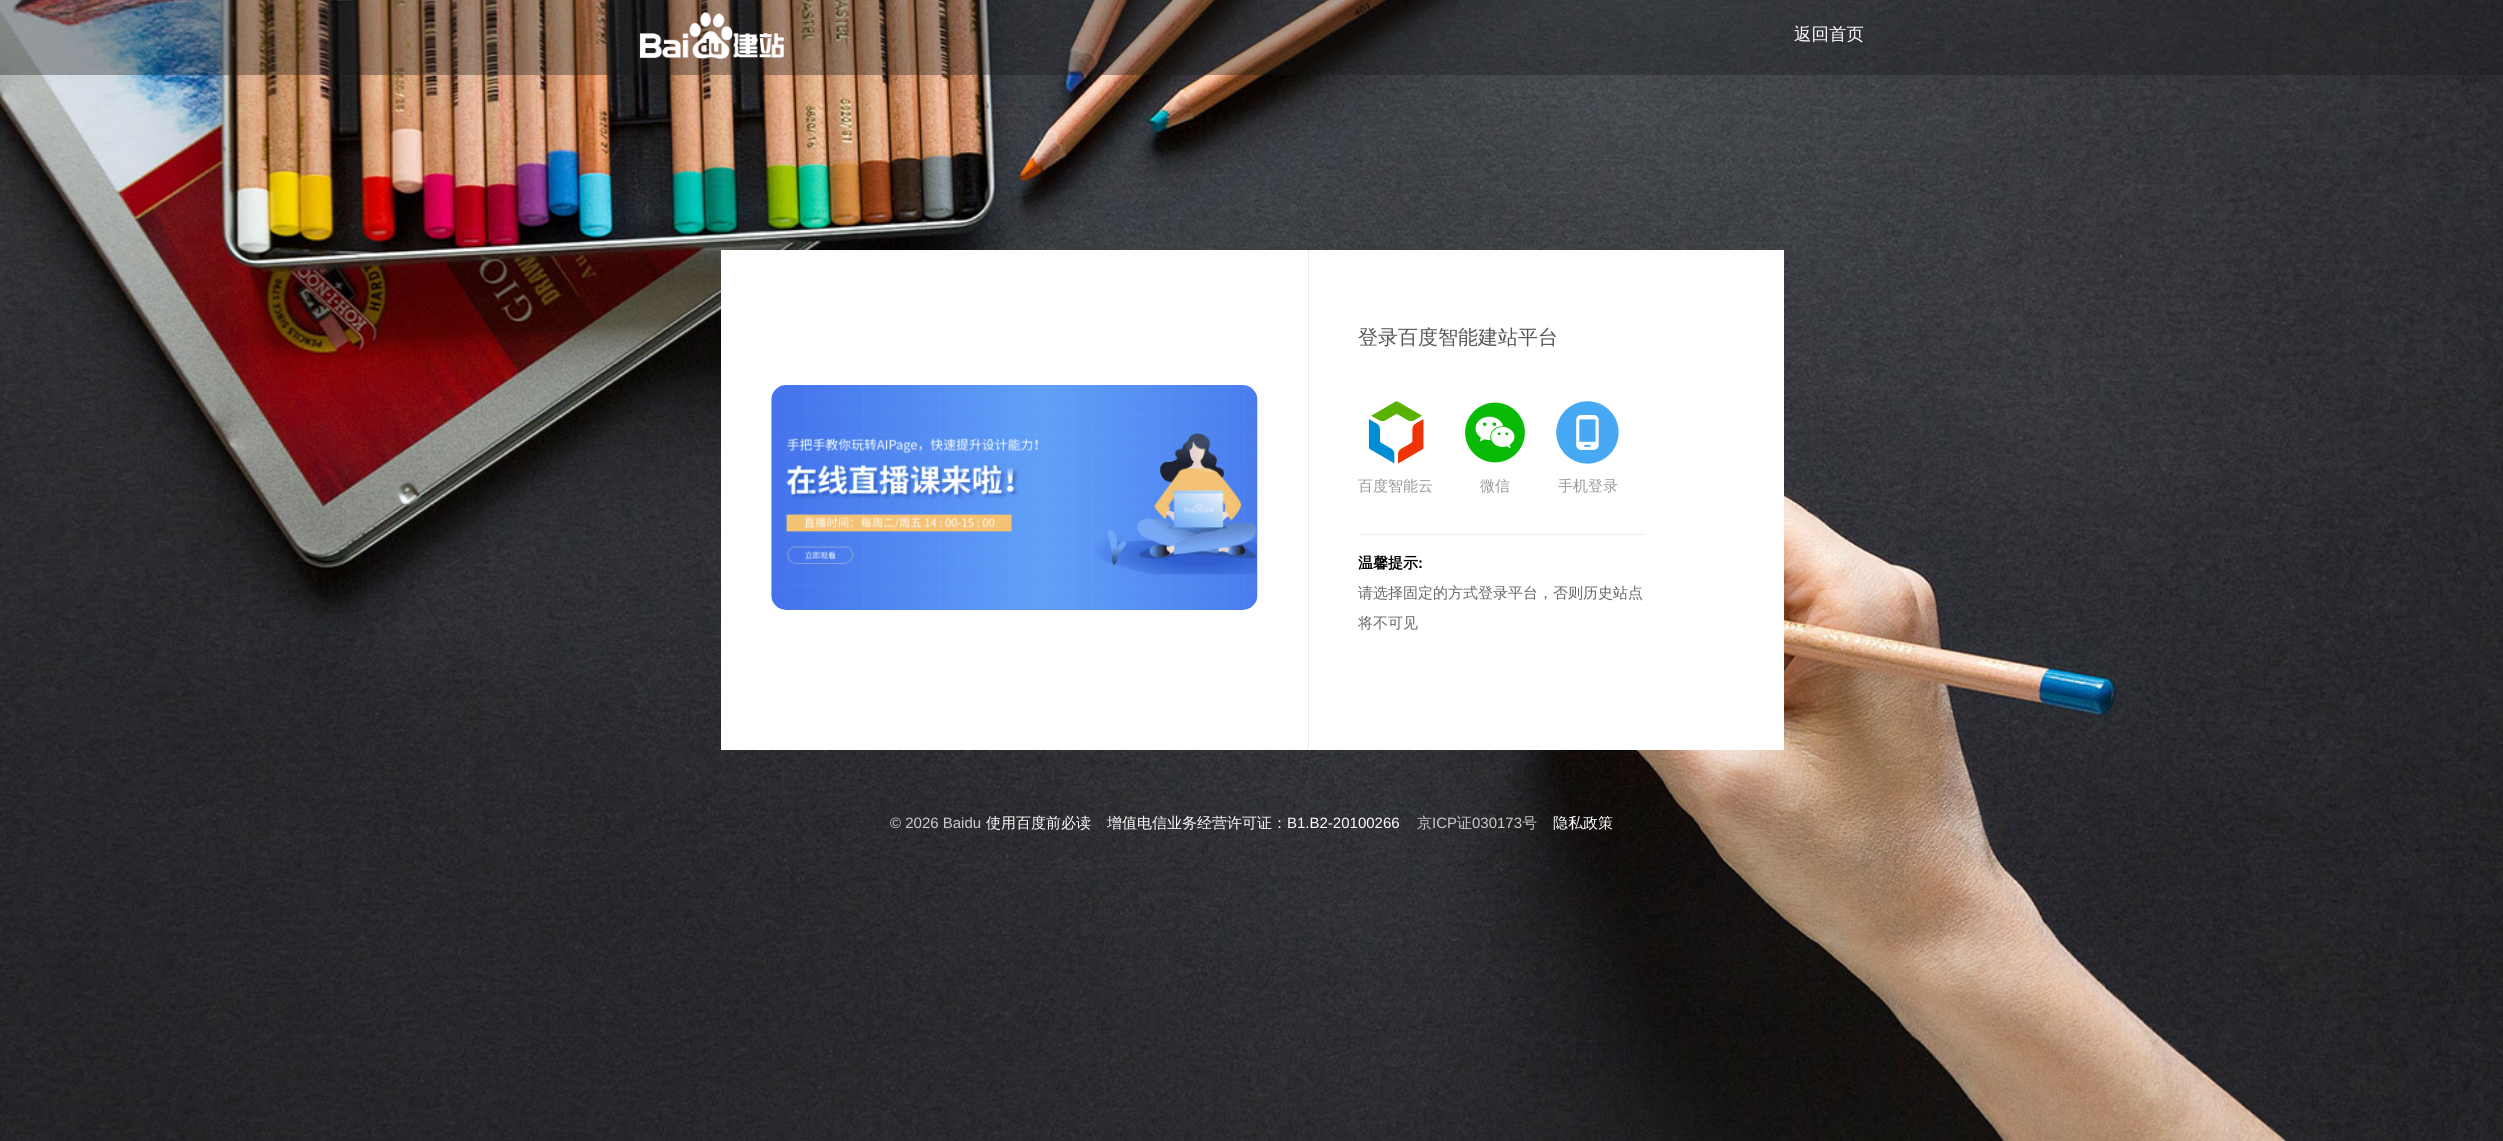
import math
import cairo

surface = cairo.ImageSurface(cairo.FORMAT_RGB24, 2503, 1141)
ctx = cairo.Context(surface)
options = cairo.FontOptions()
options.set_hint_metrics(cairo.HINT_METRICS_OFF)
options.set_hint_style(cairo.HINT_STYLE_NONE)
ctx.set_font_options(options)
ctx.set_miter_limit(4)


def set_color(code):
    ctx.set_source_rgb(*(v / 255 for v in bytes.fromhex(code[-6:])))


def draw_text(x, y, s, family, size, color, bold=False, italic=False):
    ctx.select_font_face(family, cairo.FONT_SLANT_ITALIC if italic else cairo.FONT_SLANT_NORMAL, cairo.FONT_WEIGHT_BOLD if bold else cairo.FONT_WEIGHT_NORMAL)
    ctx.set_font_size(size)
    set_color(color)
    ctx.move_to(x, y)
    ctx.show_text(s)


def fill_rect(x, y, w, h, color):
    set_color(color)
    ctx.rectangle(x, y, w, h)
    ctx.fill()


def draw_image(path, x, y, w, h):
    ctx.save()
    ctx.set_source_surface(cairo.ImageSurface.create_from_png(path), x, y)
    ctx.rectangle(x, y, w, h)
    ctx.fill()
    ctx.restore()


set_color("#ffffff")
ctx.paint()
draw_image("assets/img1.png", 0, 0, 2503, 1141)
ctx.set_source_rgba(0.09, 0.09, 0.09, 0.35)
ctx.rectangle(0, 0, 2503, 75)
ctx.fill()
draw_image("assets/img2.png", 640, 12, 144, 47)
draw_text(1794, 40, "返回首页", "WenQuanYi Zen Hei Medium", 17.5, "#ffffff")
fill_rect(721, 250, 1063, 500, "#ffffff")
fill_rect(1308, 250, 1, 500, "#ececec")
draw_image("assets/img3.png", 771, 385, 487, 225)
draw_text(1358, 344, "登录百度智能建站平台", "WenQuanYi Zen Hei Medium", 20, "#555555")
draw_image("assets/img4.png", 1368, 401, 56, 63)
draw_text(1358, 491, "百度智能云", "WenQuanYi Zen Hei Medium", 15, "#999999")
draw_image("assets/img5.png", 1465, 402, 60, 61)
draw_text(1480, 491, "微信", "WenQuanYi Zen Hei Medium", 15, "#999999")
draw_image("assets/img6.png", 1556, 401, 63, 63)
draw_text(1558, 491, "手机登录", "WenQuanYi Zen Hei Medium", 15, "#999999")
fill_rect(1359, 534, 285, 1, "#ececee")
draw_text(1358, 568, "温馨提示", "WenQuanYi Zen Hei", 15, "#000000", bold=True)
draw_text(1418, 568, ":", "Liberation Sans", 15, "#000000", bold=True)
draw_text(1358, 598, "请选择固定的方式登录平台，否则历史站点", "WenQuanYi Zen Hei Medium", 15, "#666666")
draw_text(1358, 628, "将不可见", "WenQuanYi Zen Hei Medium", 15, "#666666")
draw_text(890, 828, "© 2026 Baidu", "Liberation Sans", 15, "#cccccc")
draw_text(986, 828, "使用百度前必读", "WenQuanYi Zen Hei Medium", 15, "#ffffff")
draw_text(1107, 828, "增值电信业务经营许可证：", "WenQuanYi Zen Hei Medium", 15, "#ffffff")
draw_text(1287, 828, "B1.B2-20100266", "Liberation Sans", 15, "#ffffff")
draw_text(1417, 828, "京", "WenQuanYi Zen Hei Medium", 15, "#cccccc")
draw_text(1432, 828, "ICP", "Liberation Sans", 15, "#cccccc")
draw_text(1457, 828, "证", "WenQuanYi Zen Hei Medium", 15, "#cccccc")
draw_text(1472, 828, "030173", "Liberation Sans", 15, "#cccccc")
draw_text(1522, 828, "号", "WenQuanYi Zen Hei Medium", 15, "#cccccc")
draw_text(1553, 828, "隐私政策", "WenQuanYi Zen Hei Medium", 15, "#ffffff")
surface.write_to_png("output.png")
